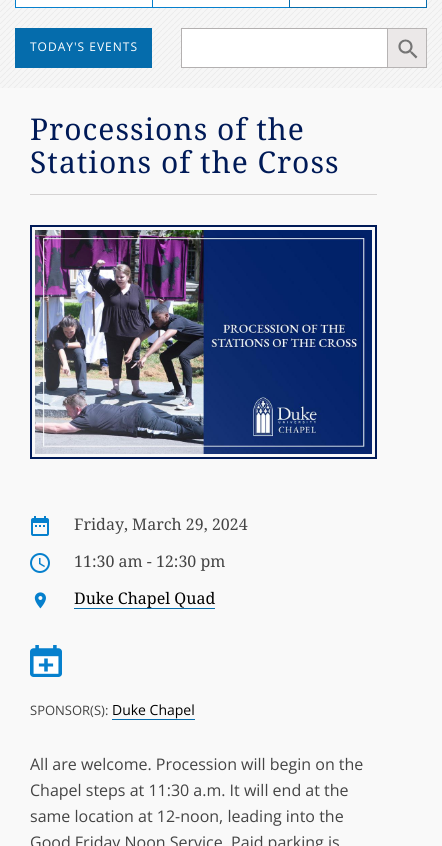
import math
import cairo

surface = cairo.ImageSurface(cairo.FORMAT_RGB24, 442, 846)
ctx = cairo.Context(surface)
options = cairo.FontOptions()
options.set_hint_metrics(cairo.HINT_METRICS_OFF)
options.set_hint_style(cairo.HINT_STYLE_NONE)
ctx.set_font_options(options)
ctx.set_miter_limit(4)


def set_color(code):
    ctx.set_source_rgb(*(v / 255 for v in bytes.fromhex(code[-6:])))


def draw_text(x, y, s, family, size, color, bold=False, italic=False):
    ctx.select_font_face(family, cairo.FONT_SLANT_ITALIC if italic else cairo.FONT_SLANT_NORMAL, cairo.FONT_WEIGHT_BOLD if bold else cairo.FONT_WEIGHT_NORMAL)
    ctx.set_font_size(size)
    set_color(color)
    ctx.move_to(x, y)
    ctx.show_text(s)


def draw_spaced(x, y, s, letter, word):
    ctx.move_to(x, y)
    for ch in s:
        ctx.show_text(ch)
        ctx.rel_move_to(letter + word * (ch == ' '), 0)


def fill_rect(x, y, w, h, color):
    set_color(color)
    ctx.rectangle(x, y, w, h)
    ctx.fill()


def draw_image(path, x, y, w, h):
    ctx.save()
    ctx.set_source_surface(cairo.ImageSurface.create_from_png(path), x, y)
    ctx.rectangle(x, y, w, h)
    ctx.fill()
    ctx.restore()


set_color("#ffffff")
ctx.paint()
draw_image("assets/img1.png", 0, 0, 442, 88)
fill_rect(15, 0, 274, 7, "#ffffff")
fill_rect(15, 7, 274, 1, "#0680cd")
fill_rect(15, 0, 1, 8, "#0680cd")
set_color("#ffffff")
ctx.rectangle(289.5, -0.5, 137, 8)
ctx.fill_preserve()
set_color("#056cac")
ctx.set_line_width(1)
ctx.stroke()
fill_rect(152, 0, 1, 8, "#0680cd")
fill_rect(15, 28, 137, 40, "#056cac")
ctx.select_font_face("Open Sans")
ctx.set_font_size(12)
set_color("#ffffff")
draw_spaced(30, 51, "TODAY'S EVENTS", 1, 0)
fill_rect(182, 29, 205, 38, "#ffffff")
fill_rect(181, 28, 206, 1, "#b3b0b0")
fill_rect(181, 67, 206, 1, "#b3b0b0")
fill_rect(181, 28, 1, 40, "#b3b0b0")
draw_image("assets/img2.png", 387, 28, 40, 40)
fill_rect(0, 88, 442, 758, "#f9f9f9")
ctx.select_font_face("Droid Serif")
ctx.set_font_size(30)
set_color("#001a57")
draw_spaced(30, 140, "Processions of the", 1, 0)
draw_spaced(30, 173, "Stations of the Cross", 1, 0)
fill_rect(30, 194, 347, 1, "#d5d3d3")
ctx.rectangle(31, 226, 345, 232)
set_color("#001a57")
ctx.set_line_width(2)
ctx.stroke()
draw_image("assets/img3.png", 35, 230, 337, 224)
draw_image("assets/img4.png", 31, 516, 18, 20)
draw_text(74, 530, "Friday, March 29, 2024", "Droid Serif", 16, "#444444")
draw_image("assets/img5.png", 30, 553, 20, 20)
draw_text(74, 567, "11:30 am - 12:30 pm", "Droid Serif", 16, "#444444")
draw_image("assets/img6.png", 34, 592, 12, 17)
draw_text(74, 604, "Duke Chapel Quad", "Droid Serif", 16, "#000000")
fill_rect(74, 608, 141, 1, "#056cac")
draw_image("assets/img7.png", 30, 645, 32, 32)
draw_text(30, 715, "SPONSOR(S):", "Open Sans", 13, "#444444")
draw_text(112, 715, "Duke Chapel", "Open Sans", 14, "#000000")
fill_rect(112, 719, 83, 1, "#056cac")
draw_text(30, 770, "All are welcome. Procession will begin on the", "Open Sans", 16, "#444444")
draw_text(30, 796, "Chapel steps at 11:30 a.m. It will end at the", "Open Sans", 16, "#444444")
draw_text(30, 822, "same location at 12-noon, leading into the", "Open Sans", 16, "#444444")
draw_text(30, 848, "Good Friday Noon Service. Paid parking is", "Open Sans", 16, "#444444")
surface.write_to_png("output.png")
